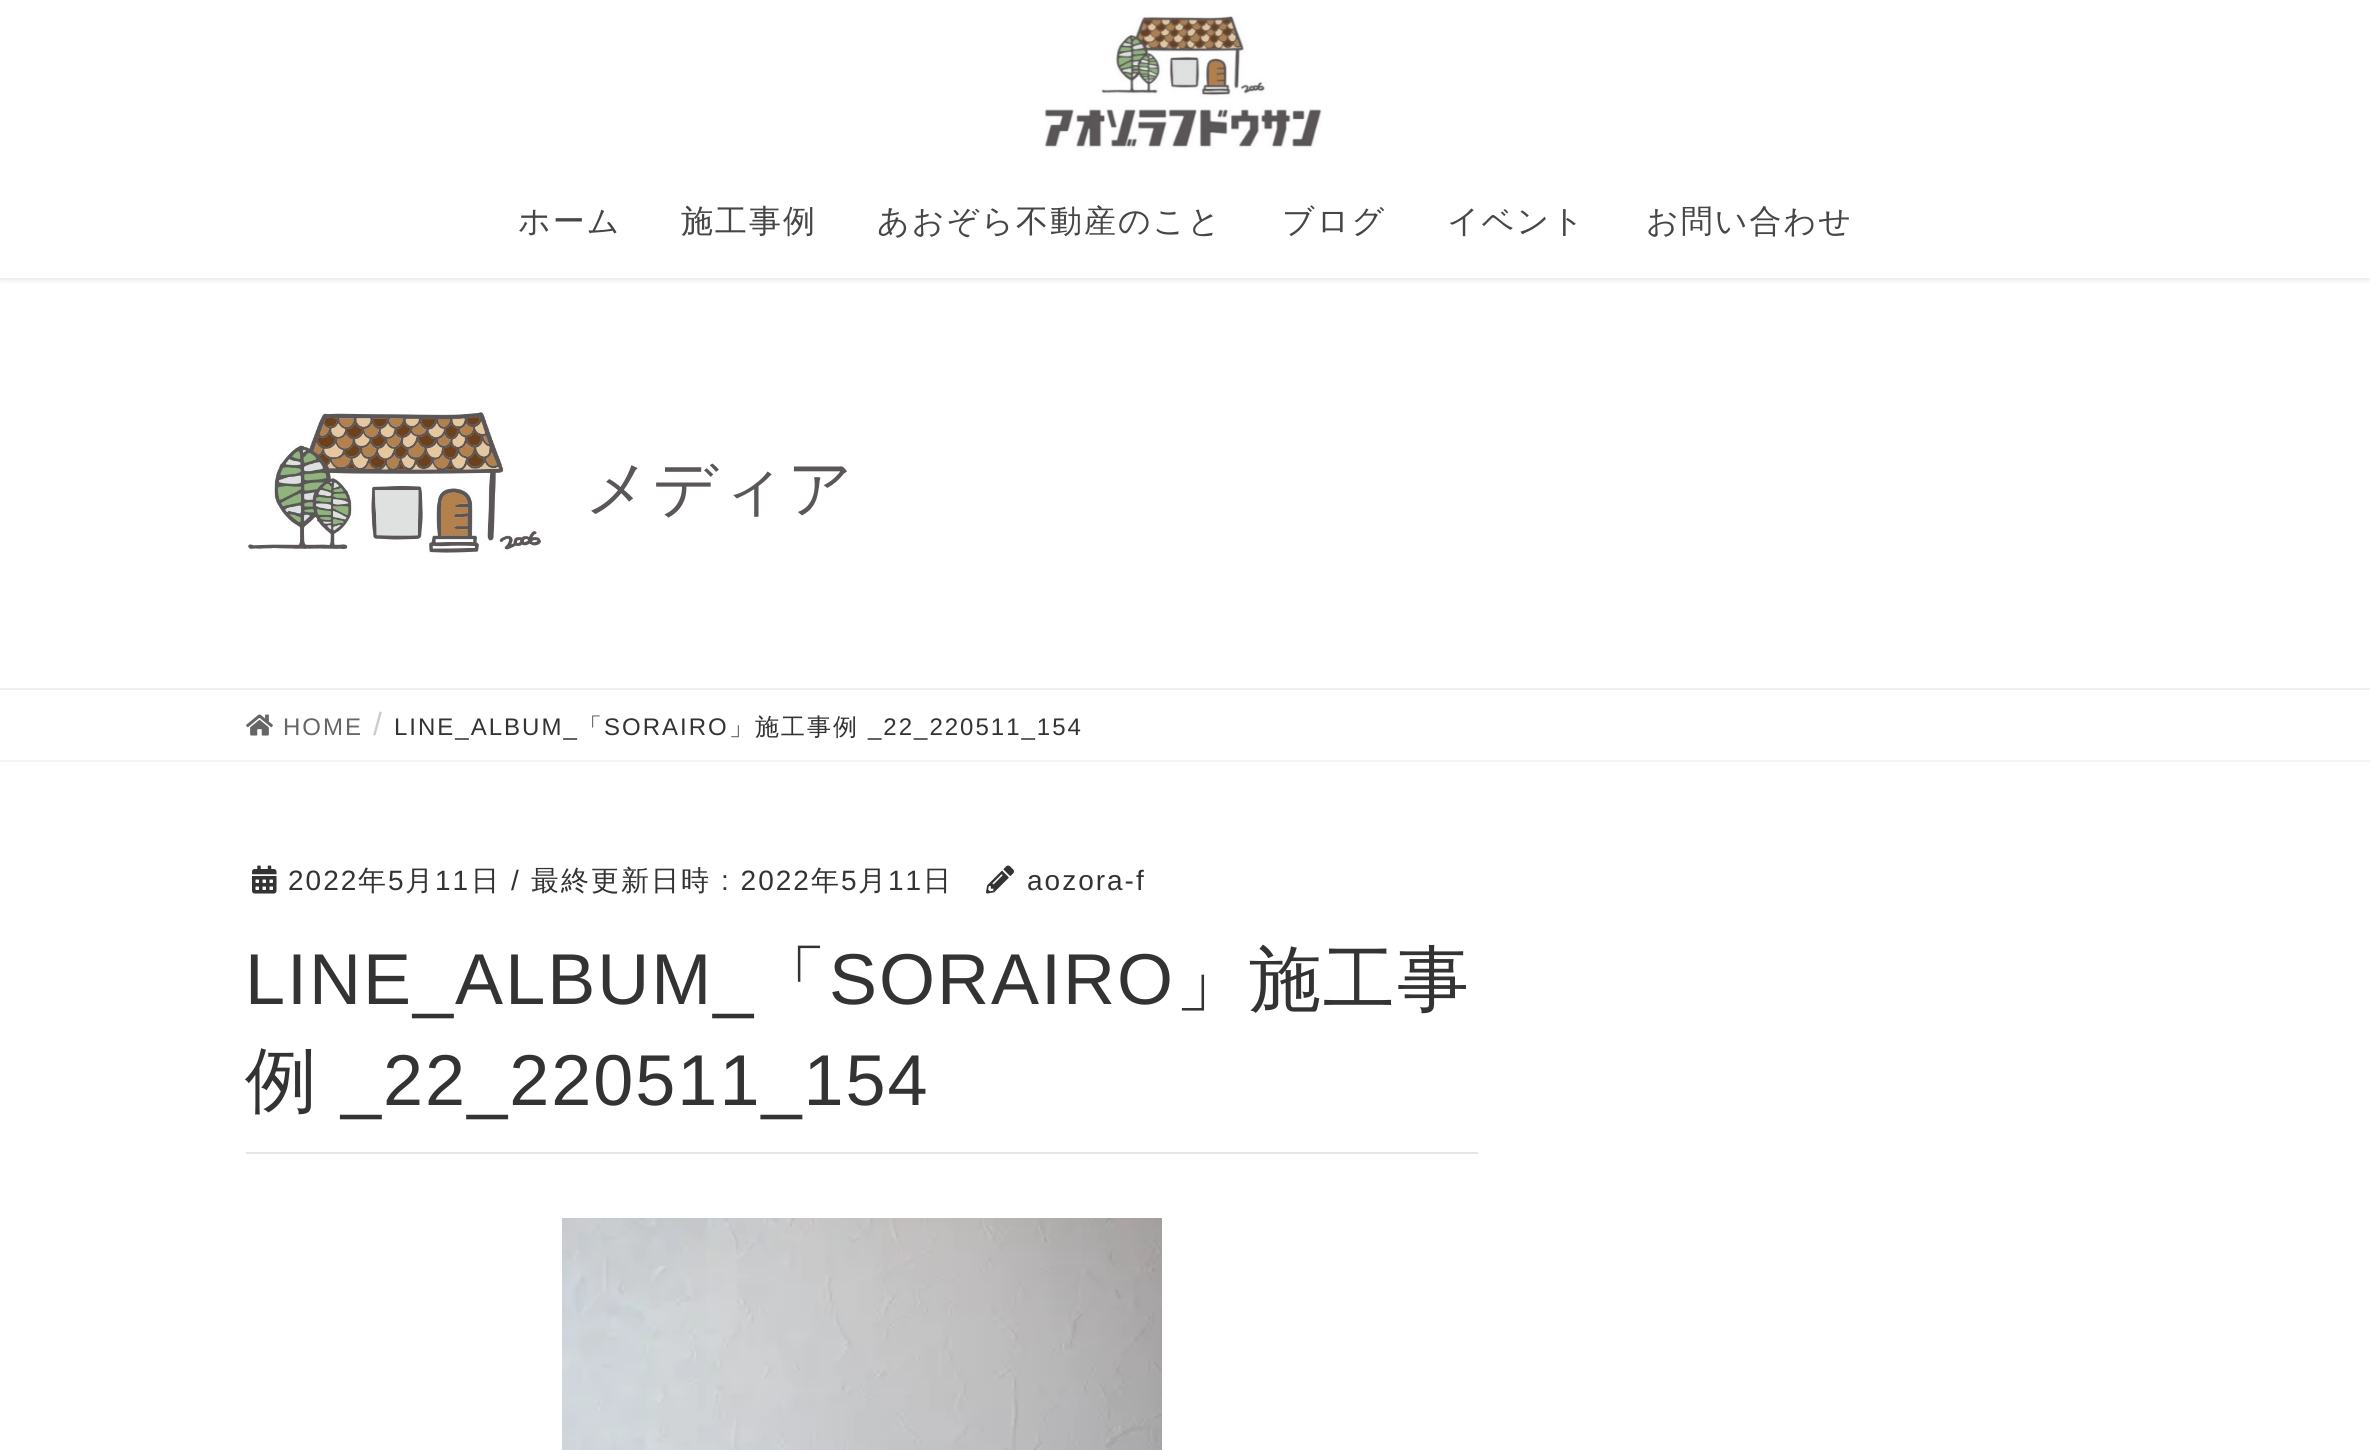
import math
import cairo

surface = cairo.ImageSurface(cairo.FORMAT_RGB24, 2370, 1450)
ctx = cairo.Context(surface)
options = cairo.FontOptions()
options.set_hint_metrics(cairo.HINT_METRICS_OFF)
options.set_hint_style(cairo.HINT_STYLE_NONE)
ctx.set_font_options(options)
ctx.set_miter_limit(4)


def set_color(code):
    ctx.set_source_rgb(*(v / 255 for v in bytes.fromhex(code[-6:])))


def draw_spaced(x, y, s, letter, word):
    ctx.move_to(x, y)
    for ch in s:
        ctx.show_text(ch)
        ctx.rel_move_to(letter + word * (ch == ' '), 0)


def fill_rect(x, y, w, h, color):
    set_color(color)
    ctx.rectangle(x, y, w, h)
    ctx.fill()


def rounded_rect(x, y, w, h, r):
    ctx.new_sub_path()
    for i, (u, v) in enumerate([(x + w - r, y + h - r), (x + r, y + h - r), (x + r, y + r), (x + w - r, y + r)]):
        ctx.arc(u, v, r, i * math.pi / 2, (i + 1) * math.pi / 2)
    ctx.close_path()


def draw_shadow(x, y, w, h, r, blur, alpha):
    ctx.push_group_with_content(cairo.CONTENT_ALPHA)
    ctx.set_operator(cairo.OPERATOR_SOURCE)
    for i in range(15, -16, -2):
        e = blur * i / 6
        if min(w, h) + 2 * e > 0:
            ctx.set_source_rgba(0, 0, 0, alpha * math.erfc((i - 1) / 8.5) / 2)
            rounded_rect(x - e, y - e, w + 2 * e, h + 2 * e, max(0, min(r + e + blur * .6, min(w, h) / 2 + e)))
            ctx.fill()
    ctx.mask(ctx.pop_group())


def draw_image(path, x, y, w, h):
    ctx.save()
    ctx.set_source_surface(cairo.ImageSurface.create_from_png(path), x, y)
    ctx.rectangle(x, y, w, h)
    ctx.fill()
    ctx.restore()


set_color("#ffffff")
ctx.paint()
ctx.save()
ctx.rectangle(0, 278, 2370, 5)
ctx.clip()
set_color("#000000")
draw_shadow(0, 2, 2370, 278, 0, 3, 0.1)
ctx.restore()
draw_image("assets/img1.png", 1044, 15, 278, 133)
ctx.select_font_face("WenQuanYi Zen Hei Medium")
ctx.set_font_size(32)
set_color("#464646")
draw_spaced(518, 232, "ホーム", 2, 0)
draw_spaced(681, 232, "施工事例", 2, 0)
draw_spaced(877, 232, "あおぞら不動産のこと", 2, 0)
draw_spaced(1282, 232, "ブログ", 2, 0)
draw_spaced(1447, 232, "イベント", 2, 0)
draw_spaced(1646, 232, "お問い合わせ", 2, 0)
fill_rect(0, 688, 2370, 2, "#eeeeee")
draw_image("assets/img2.png", 246, 409, 295, 144)
ctx.set_font_size(64)
set_color("#5b5657")
draw_spaced(585, 510, "メディア", 2, 0)
fill_rect(0, 760, 2370, 2, "#f3f3f3")
draw_image("assets/img3.png", 246, 714, 27, 22)
ctx.select_font_face("Liberation Sans")
ctx.set_font_size(24)
set_color("#666666")
draw_spaced(283, 735, "HOME", 2, 0)
ctx.set_font_size(32)
set_color("#cccccc")
draw_spaced(373, 735, "/", 2, 0)
ctx.set_font_size(24)
set_color("#333333")
draw_spaced(394, 735, "LINE_ALBUM_", 2, 0)
ctx.select_font_face("WenQuanYi Zen Hei Medium")
draw_spaced(578, 735, "「", 2, 0)
ctx.select_font_face("Liberation Sans")
draw_spaced(604, 735, "SORAIRO", 2, 0)
ctx.select_font_face("WenQuanYi Zen Hei Medium")
draw_spaced(729, 735, "」施工事例", 2, 0)
ctx.select_font_face("Liberation Sans")
draw_spaced(868, 735, "_22_220511_154", 2, 0)
fill_rect(246, 1152, 1232, 2, "#e5e5e5")
draw_image("assets/img4.png", 252, 865, 25, 29)
ctx.set_font_size(28)
set_color("#333333")
draw_spaced(288, 890, "2022", 2, 0)
ctx.select_font_face("WenQuanYi Zen Hei Medium")
draw_spaced(358, 890, "年", 2, 0)
ctx.select_font_face("Liberation Sans")
draw_spaced(388, 890, "5", 2, 0)
ctx.select_font_face("WenQuanYi Zen Hei Medium")
draw_spaced(405, 890, "月", 2, 0)
ctx.select_font_face("Liberation Sans")
draw_spaced(435, 890, "11", 2, 0)
ctx.select_font_face("WenQuanYi Zen Hei Medium")
draw_spaced(471, 890, "日", 2, 0)
ctx.select_font_face("Liberation Sans")
draw_spaced(511, 890, "/", 2, 0)
ctx.select_font_face("WenQuanYi Zen Hei Medium")
draw_spaced(531, 890, "最終更新日時", 2, 0)
ctx.select_font_face("Liberation Sans")
draw_spaced(721, 890, ": 2022", 2, 0)
ctx.select_font_face("WenQuanYi Zen Hei Medium")
draw_spaced(811, 890, "年", 2, 0)
ctx.select_font_face("Liberation Sans")
draw_spaced(841, 890, "5", 2, 0)
ctx.select_font_face("WenQuanYi Zen Hei Medium")
draw_spaced(858, 890, "月", 2, 0)
ctx.select_font_face("Liberation Sans")
draw_spaced(888, 890, "11", 2, 0)
ctx.select_font_face("WenQuanYi Zen Hei Medium")
draw_spaced(923, 890, "日", 2, 0)
draw_image("assets/img5.png", 986, 865, 28, 29)
ctx.select_font_face("Liberation Sans")
draw_spaced(1027, 890, "aozora-f", 2, 0)
ctx.set_font_size(72)
draw_spaced(245, 1004, "LINE_ALBUM_", 2, 0)
ctx.select_font_face("WenQuanYi Zen Hei Medium")
draw_spaced(755, 1004, "「", 2, 0)
ctx.select_font_face("Liberation Sans")
draw_spaced(829, 1004, "SORAIRO", 2, 0)
ctx.select_font_face("WenQuanYi Zen Hei Medium")
draw_spaced(1175, 1004, "」施工事", 2, 0)
draw_spaced(245, 1105, "例", 2, 0)
ctx.select_font_face("Liberation Sans")
draw_spaced(341, 1105, "_22_220511_154", 2, 0)
draw_image("assets/img6.png", 562, 1218, 600, 232)
surface.write_to_png("output.png")
